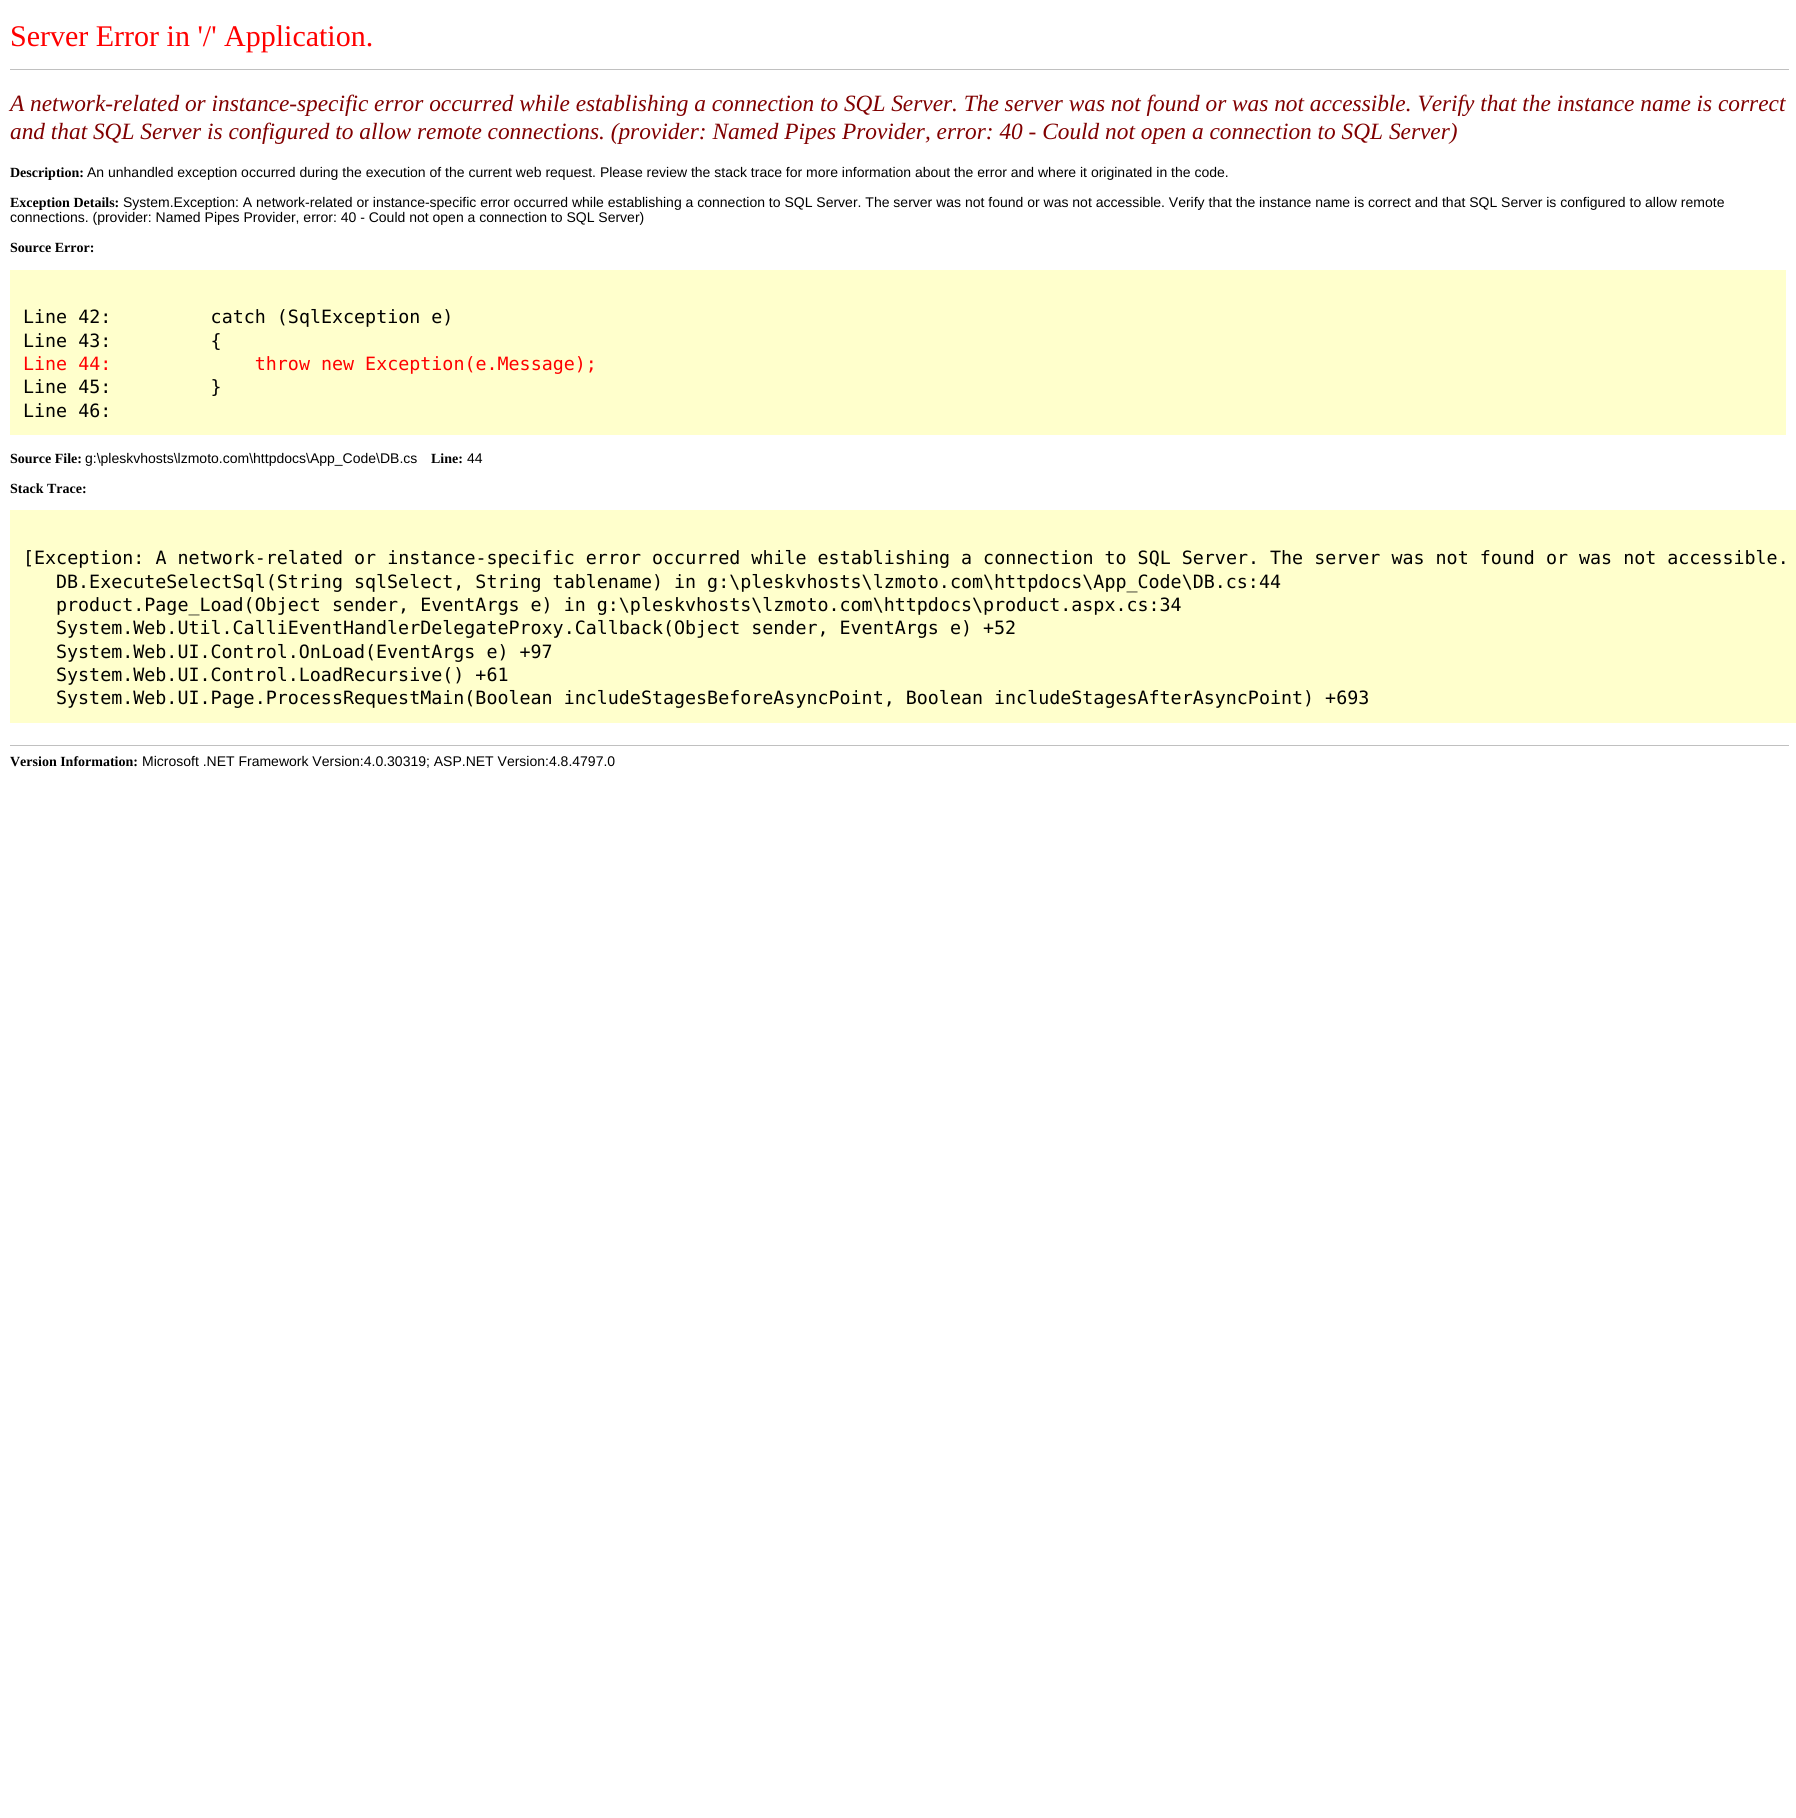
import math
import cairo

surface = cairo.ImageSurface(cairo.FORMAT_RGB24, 1796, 1818)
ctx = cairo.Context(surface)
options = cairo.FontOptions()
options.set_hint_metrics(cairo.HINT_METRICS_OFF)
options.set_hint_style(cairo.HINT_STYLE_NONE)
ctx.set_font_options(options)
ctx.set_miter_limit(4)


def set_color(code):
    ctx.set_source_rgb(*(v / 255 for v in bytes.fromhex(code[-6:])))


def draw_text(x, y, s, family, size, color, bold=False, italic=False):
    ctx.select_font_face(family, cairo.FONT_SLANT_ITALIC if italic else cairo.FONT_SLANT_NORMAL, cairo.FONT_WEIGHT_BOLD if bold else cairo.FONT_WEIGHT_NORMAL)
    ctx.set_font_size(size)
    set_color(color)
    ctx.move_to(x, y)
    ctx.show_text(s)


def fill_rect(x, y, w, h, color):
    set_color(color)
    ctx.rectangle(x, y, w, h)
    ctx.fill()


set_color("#ffffff")
ctx.paint()
draw_text(10, 46, "Server Error in '/' Application.", "Liberation Serif", 30, "#ff0000")
fill_rect(10, 69, 1779, 1, "#c0c0c0")
draw_text(10, 111, "A network-related or instance-specific error occurred while establishing a connection to SQL Server. The server was not found or was not accessible. Verify that the instance name is correct", "Liberation Serif", 23.33, "#800000", italic=True)
draw_text(10, 139, "and that SQL Server is configured to allow remote connections. (provider: Named Pipes Provider, error: 40 - Could not open a connection to SQL Server)", "Liberation Serif", 23.33, "#800000", italic=True)
draw_text(10, 177, "Description:", "Liberation Serif", 14, "#000000", bold=True)
draw_text(87, 177, "An unhandled exception occurred during the execution of the current web request. Please review the stack trace for more information about the error and where it originated in the code.", "Liberation Sans", 14, "#000000")
draw_text(10, 207, "Exception Details:", "Liberation Serif", 14, "#000000", bold=True)
draw_text(123, 207, "System.Exception: A network-related or instance-specific error occurred while establishing a connection to SQL Server. The server was not found or was not accessible. Verify that the instance name is correct and that SQL Server is configured to allow remote", "Liberation Sans", 14, "#000000")
draw_text(10, 222, "connections. (provider: Named Pipes Provider, error: 40 - Could not open a connection to SQL Server)", "Liberation Sans", 14, "#000000")
draw_text(10, 252, "Source Error:", "Liberation Serif", 14, "#000000", bold=True)
fill_rect(10, 270, 1776, 165, "#ffffcc")
draw_text(23, 323, "Line 42:         catch (SqlException e)", "DejaVu Sans Mono", 18.33, "#000000")
draw_text(23, 347, "Line 43:         {", "DejaVu Sans Mono", 18.33, "#000000")
draw_text(23, 370, "Line 44:             throw new Exception(e.Message);", "DejaVu Sans Mono", 18.33, "#ff0000")
draw_text(23, 393, "Line 45:         }", "DejaVu Sans Mono", 18.33, "#000000")
draw_text(23, 417, "Line 46:", "DejaVu Sans Mono", 18.33, "#000000")
draw_text(10, 463, "Source File:", "Liberation Serif", 14, "#000000", bold=True)
draw_text(85, 463, "g:\\pleskvhosts\\lzmoto.com\\httpdocs\\App_Code\\DB.cs", "Liberation Sans", 14, "#000000")
draw_text(431, 463, "Line:", "Liberation Serif", 14, "#000000", bold=True)
draw_text(467, 463, "44", "Liberation Sans", 14, "#000000")
draw_text(10, 493, "Stack Trace:", "Liberation Serif", 14, "#000000", bold=True)
fill_rect(10, 510, 1786, 213, "#ffffcc")
draw_text(23, 564, "[Exception: A network-related or instance-specific error occurred while establishing a connection to SQL Server. The server was not found or was not accessible.", "DejaVu Sans Mono", 18.33, "#000000")
draw_text(56, 588, "DB.ExecuteSelectSql(String sqlSelect, String tablename) in g:\\pleskvhosts\\lzmoto.com\\httpdocs\\App_Code\\DB.cs:44", "DejaVu Sans Mono", 18.33, "#000000")
draw_text(56, 611, "product.Page_Load(Object sender, EventArgs e) in g:\\pleskvhosts\\lzmoto.com\\httpdocs\\product.aspx.cs:34", "DejaVu Sans Mono", 18.33, "#000000")
draw_text(56, 634, "System.Web.Util.CalliEventHandlerDelegateProxy.Callback(Object sender, EventArgs e) +52", "DejaVu Sans Mono", 18.33, "#000000")
draw_text(56, 658, "System.Web.UI.Control.OnLoad(EventArgs e) +97", "DejaVu Sans Mono", 18.33, "#000000")
draw_text(56, 681, "System.Web.UI.Control.LoadRecursive() +61", "DejaVu Sans Mono", 18.33, "#000000")
draw_text(56, 704, "System.Web.UI.Page.ProcessRequestMain(Boolean includeStagesBeforeAsyncPoint, Boolean includeStagesAfterAsyncPoint) +693", "DejaVu Sans Mono", 18.33, "#000000")
fill_rect(10, 745, 1779, 1, "#c0c0c0")
draw_text(10, 766, "Version Information:", "Liberation Serif", 14, "#000000", bold=True)
draw_text(142, 766, "Microsoft .NET Framework Version:4.0.30319; ASP.NET Version:4.8.4797.0", "Liberation Sans", 14, "#000000")
surface.write_to_png("output.png")
